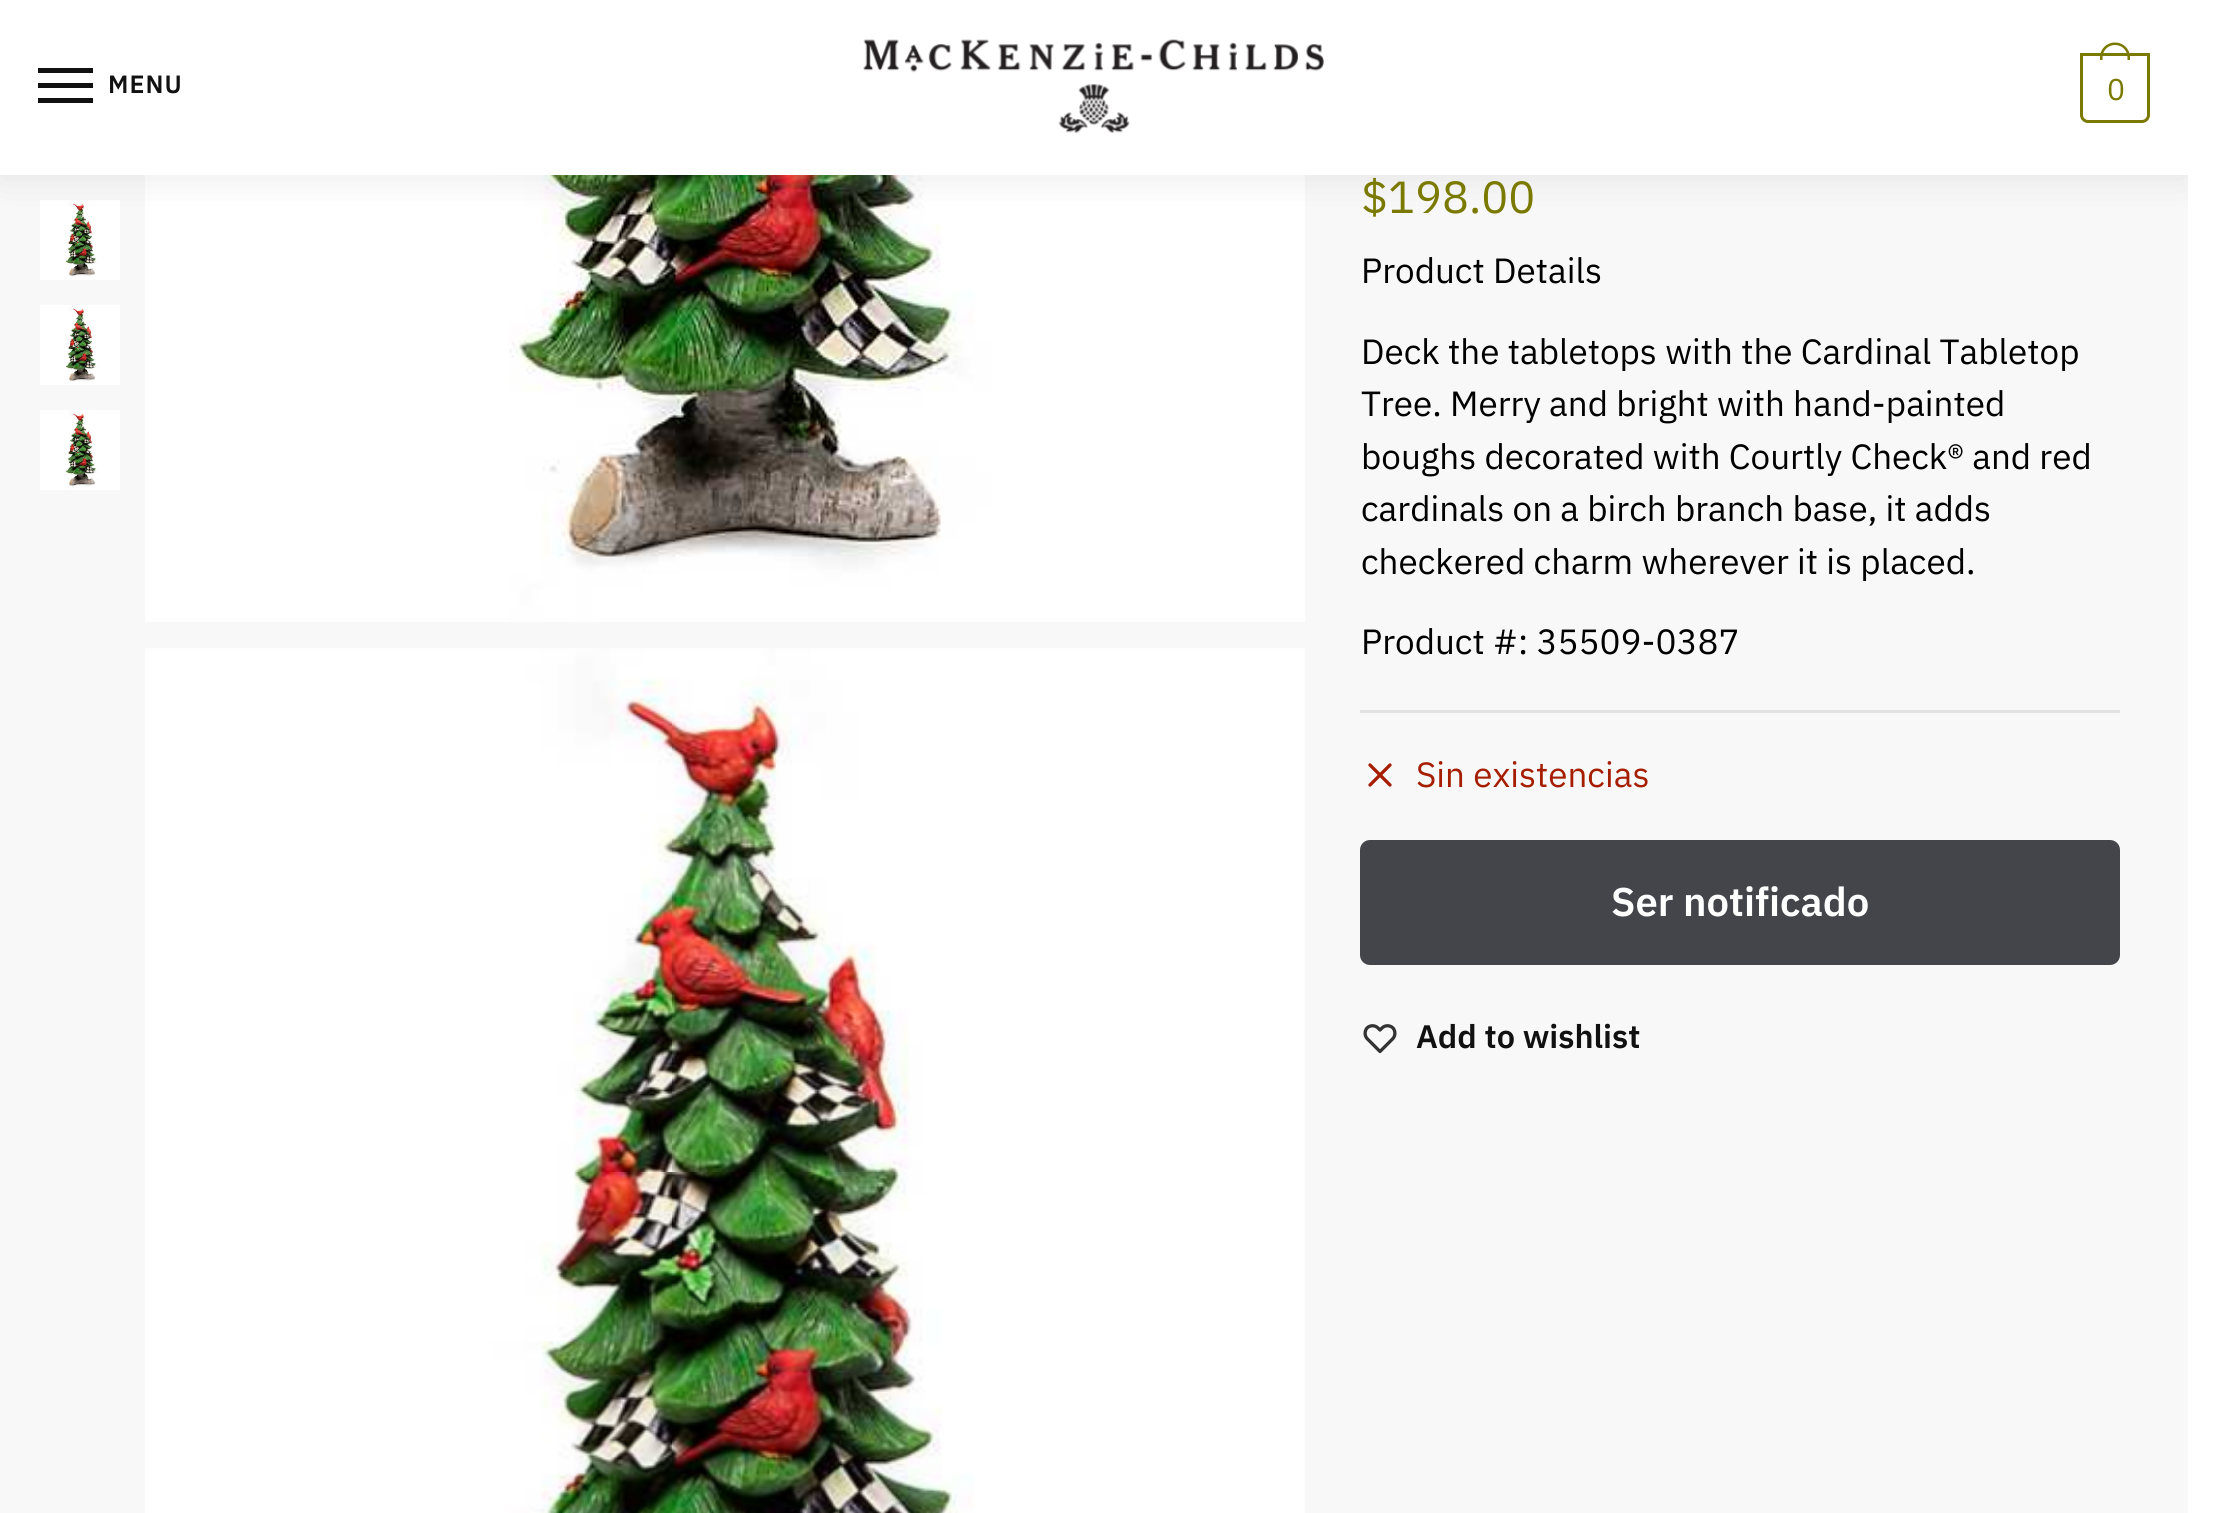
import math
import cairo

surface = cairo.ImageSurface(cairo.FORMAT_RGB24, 2225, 1513)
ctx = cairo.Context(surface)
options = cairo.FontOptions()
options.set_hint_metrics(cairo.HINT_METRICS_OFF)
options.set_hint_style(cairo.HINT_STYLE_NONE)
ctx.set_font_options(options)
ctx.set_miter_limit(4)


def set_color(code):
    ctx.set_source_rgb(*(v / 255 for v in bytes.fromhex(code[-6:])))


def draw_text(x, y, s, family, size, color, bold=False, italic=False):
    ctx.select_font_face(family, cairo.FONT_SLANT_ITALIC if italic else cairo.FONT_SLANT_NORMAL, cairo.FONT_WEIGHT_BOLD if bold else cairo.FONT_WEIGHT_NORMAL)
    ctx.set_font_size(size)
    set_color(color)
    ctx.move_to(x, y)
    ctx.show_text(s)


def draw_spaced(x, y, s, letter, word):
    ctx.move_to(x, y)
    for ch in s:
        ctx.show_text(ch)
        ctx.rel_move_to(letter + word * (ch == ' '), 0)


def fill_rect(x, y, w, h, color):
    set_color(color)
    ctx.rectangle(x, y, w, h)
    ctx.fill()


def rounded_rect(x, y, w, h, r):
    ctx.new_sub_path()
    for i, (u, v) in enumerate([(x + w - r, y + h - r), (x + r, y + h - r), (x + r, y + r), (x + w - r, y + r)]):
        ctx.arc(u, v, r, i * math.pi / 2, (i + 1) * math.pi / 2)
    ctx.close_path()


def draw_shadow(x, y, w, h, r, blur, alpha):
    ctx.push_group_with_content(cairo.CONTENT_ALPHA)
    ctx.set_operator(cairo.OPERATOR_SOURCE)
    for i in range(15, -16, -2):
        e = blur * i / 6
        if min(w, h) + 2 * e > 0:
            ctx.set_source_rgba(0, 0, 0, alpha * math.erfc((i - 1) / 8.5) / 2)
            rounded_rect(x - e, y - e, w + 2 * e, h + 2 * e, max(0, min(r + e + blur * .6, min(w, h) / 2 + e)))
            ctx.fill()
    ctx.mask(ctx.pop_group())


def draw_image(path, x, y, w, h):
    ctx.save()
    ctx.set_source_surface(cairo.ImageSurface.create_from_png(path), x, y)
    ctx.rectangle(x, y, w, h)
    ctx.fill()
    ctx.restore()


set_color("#f8f8f8")
ctx.paint()
draw_image("assets/img2.png", 40, 200, 80, 80)
draw_image("assets/img5.png", 145, 175, 1160, 447)
set_color("#000000")
draw_shadow(0, 3, 2188, 175, 0, 19, 0.08)
fill_rect(0, 0, 2188, 175, "#ffffff")
fill_rect(38, 68, 55, 5, "#111111")
fill_rect(38, 83, 55, 5, "#111111")
ctx.select_font_face("IBM Plex Sans SemiBold")
ctx.set_font_size(25)
draw_spaced(108, 93, "MENU", 1, 0)
fill_rect(38, 98, 55, 5, "#111111")
draw_image("assets/img1.png", 863, 39, 461, 94)
ctx.new_path()
ctx.move_to(2081.5, 54.5)
ctx.line_to(2148.5, 54.5)
ctx.line_to(2148.5, 115)
ctx.curve_to(2148.5, 118.5, 2145.5, 121.5, 2142, 121.5)
ctx.line_to(2088, 121.5)
ctx.curve_to(2084.5, 121.5, 2081.5, 118.5, 2081.5, 115)
ctx.close_path()
set_color("#7a7900")
ctx.set_line_width(3)
ctx.stroke()
ctx.set_fill_rule(cairo.FILL_RULE_EVEN_ODD)
ctx.new_path()
ctx.move_to(2115, 42.5)
ctx.curve_to(2123.5, 42.5, 2130, 49, 2130, 57.5)
ctx.line_to(2130, 60)
ctx.line_to(2100, 60)
ctx.line_to(2100, 57.5)
ctx.curve_to(2100, 49, 2106.5, 42.5, 2115, 42.5)
ctx.close_path()
ctx.move_to(2115, 45)
ctx.curve_to(2122, 45, 2127.5, 50.5, 2127.5, 57.5)
ctx.line_to(2127.5, 60)
ctx.line_to(2102.5, 60)
ctx.line_to(2102.5, 57.5)
ctx.curve_to(2102.5, 50.5, 2108, 45, 2115, 45)
ctx.close_path()
ctx.fill()
ctx.select_font_face("IBM Plex Sans")
ctx.set_font_size(30)
draw_spaced(2107, 100, "0", -2, 0)
fill_rect(2188, 0, 37, 1513, "#ffffff")
draw_image("assets/img3.png", 40, 305, 80, 80)
draw_image("assets/img4.png", 40, 410, 80, 80)
draw_image("assets/img6.png", 145, 648, 1160, 865)
draw_text(1361, 213, "$198.00", "IBM Plex Sans", 45, "#7a7900")
draw_text(1361, 283, "Product Details", "IBM Plex Sans", 35, "#000000")
draw_text(1361, 364, "Deck the tabletops with the Cardinal Tabletop", "IBM Plex Sans", 35, "#000000")
draw_text(1361, 416, "Tree. Merry and bright with hand-painted", "IBM Plex Sans", 35, "#000000")
draw_text(1361, 469, "boughs decorated with Courtly Check® and red", "IBM Plex Sans", 35, "#000000")
draw_text(1361, 521, "cardinals on a birch branch base, it adds", "IBM Plex Sans", 35, "#000000")
draw_text(1361, 574, "checkered charm wherever it is placed.", "IBM Plex Sans", 35, "#000000")
draw_text(1361, 654, "Product #: 35509-0387", "IBM Plex Sans", 35, "#000000")
fill_rect(1360, 710, 760, 3, "#e2e2e2")
ctx.new_path()
ctx.move_to(1370, 785)
ctx.line_to(1390, 765)
ctx.move_to(1370, 765)
ctx.line_to(1390, 785)
set_color("#a61e00")
ctx.set_line_width(3.3)
ctx.set_line_cap(cairo.LINE_CAP_ROUND)
ctx.set_line_join(cairo.LINE_JOIN_ROUND)
ctx.stroke()
draw_text(1416, 787, "Sin existencias", "IBM Plex Sans", 35, "#a61e00")
set_color("#43454b")
rounded_rect(1360, 840, 760, 125, 10)
ctx.fill()
draw_text(1611, 916, "Ser notificado", "IBM Plex Sans SemiBold", 40, "#ffffff")
ctx.new_path()
ctx.move_to(1367, 1028)
ctx.curve_to(1364.5, 1031, 1364.5, 1035.5, 1367, 1038.5)
ctx.line_to(1380, 1051.5)
ctx.line_to(1393, 1038.5)
ctx.curve_to(1395.5, 1035.5, 1395.5, 1031, 1393, 1028)
ctx.curve_to(1390, 1025, 1385, 1025, 1382, 1028)
ctx.line_to(1380, 1030)
ctx.line_to(1378, 1028)
ctx.curve_to(1375, 1025, 1370, 1025, 1367, 1028)
ctx.close_path()
set_color("#333333")
ctx.stroke()
draw_text(1416, 1048, "Add to wishlist", "IBM Plex Sans SemiBold", 32.5, "#111111")
surface.write_to_png("output.png")
